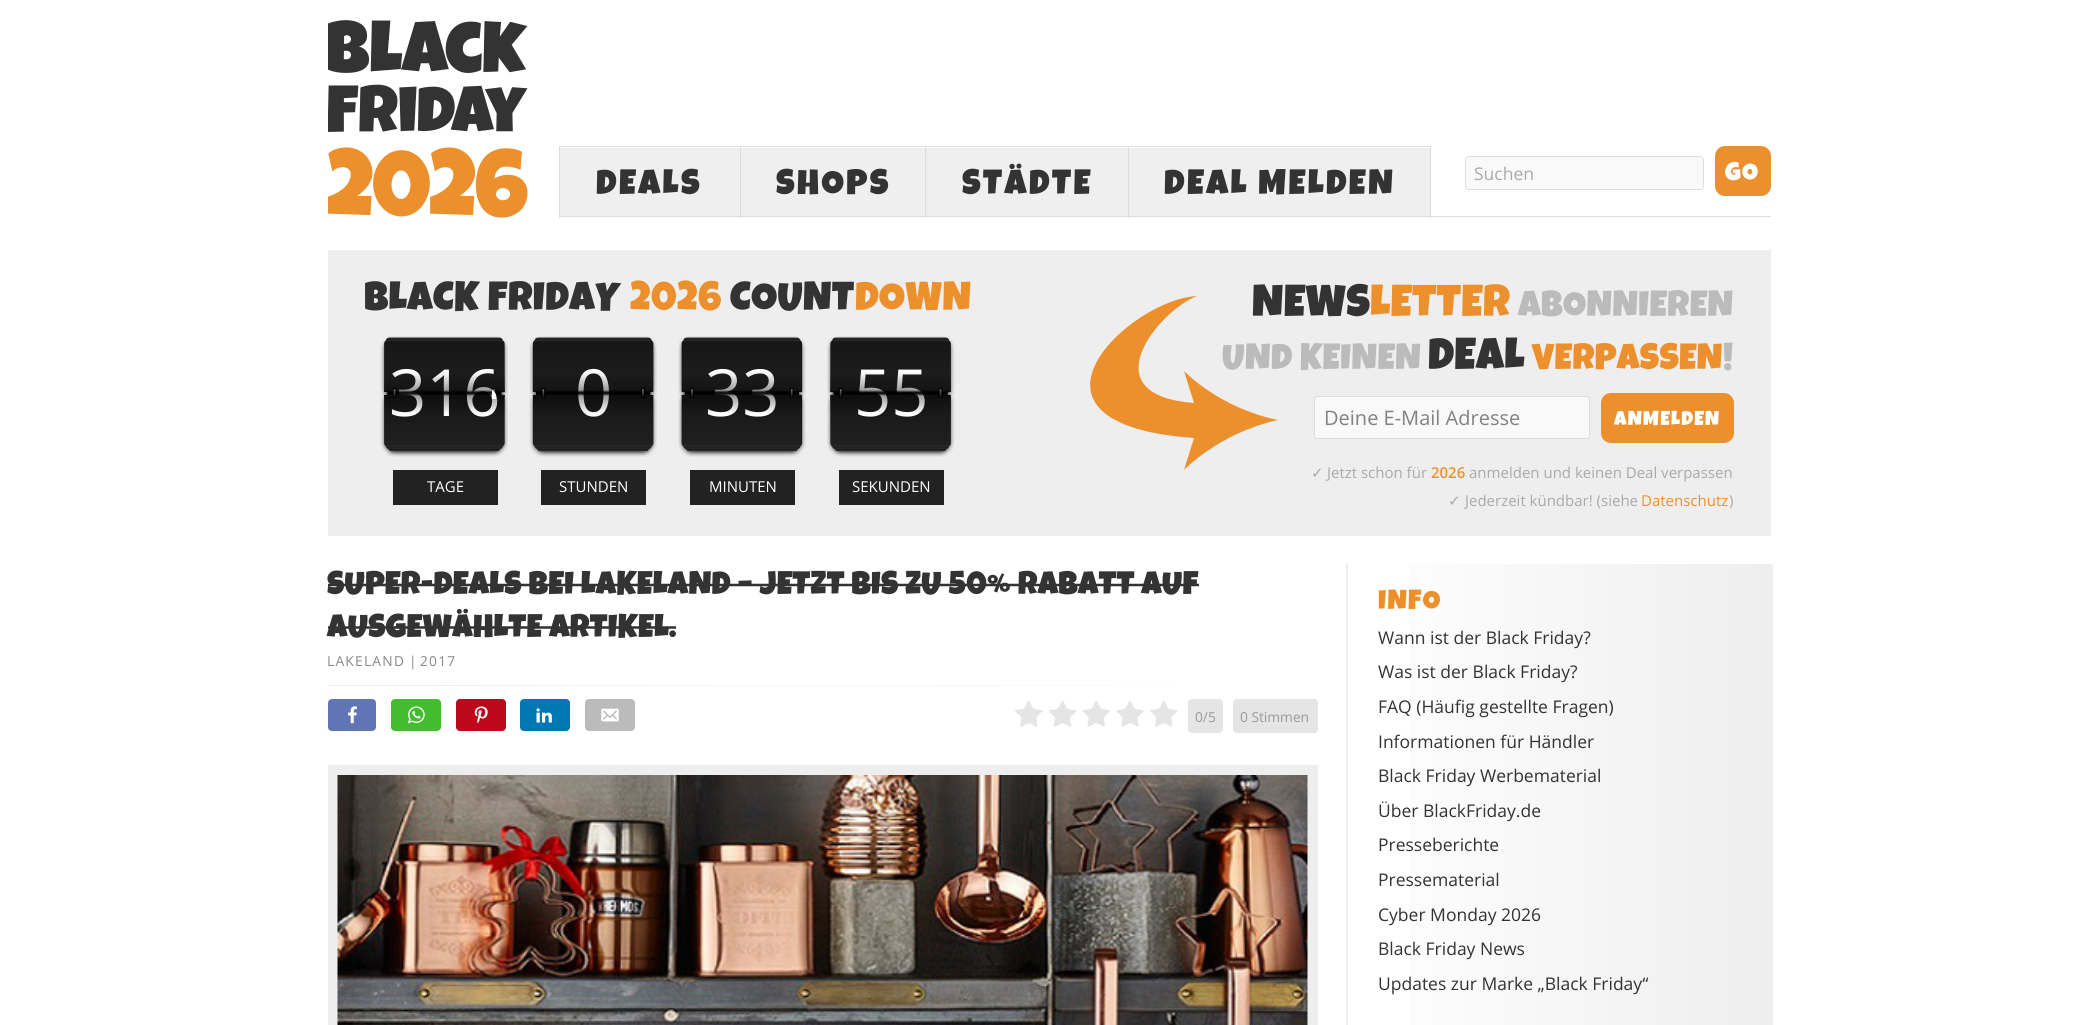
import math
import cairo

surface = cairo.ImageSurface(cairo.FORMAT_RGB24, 2097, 1025)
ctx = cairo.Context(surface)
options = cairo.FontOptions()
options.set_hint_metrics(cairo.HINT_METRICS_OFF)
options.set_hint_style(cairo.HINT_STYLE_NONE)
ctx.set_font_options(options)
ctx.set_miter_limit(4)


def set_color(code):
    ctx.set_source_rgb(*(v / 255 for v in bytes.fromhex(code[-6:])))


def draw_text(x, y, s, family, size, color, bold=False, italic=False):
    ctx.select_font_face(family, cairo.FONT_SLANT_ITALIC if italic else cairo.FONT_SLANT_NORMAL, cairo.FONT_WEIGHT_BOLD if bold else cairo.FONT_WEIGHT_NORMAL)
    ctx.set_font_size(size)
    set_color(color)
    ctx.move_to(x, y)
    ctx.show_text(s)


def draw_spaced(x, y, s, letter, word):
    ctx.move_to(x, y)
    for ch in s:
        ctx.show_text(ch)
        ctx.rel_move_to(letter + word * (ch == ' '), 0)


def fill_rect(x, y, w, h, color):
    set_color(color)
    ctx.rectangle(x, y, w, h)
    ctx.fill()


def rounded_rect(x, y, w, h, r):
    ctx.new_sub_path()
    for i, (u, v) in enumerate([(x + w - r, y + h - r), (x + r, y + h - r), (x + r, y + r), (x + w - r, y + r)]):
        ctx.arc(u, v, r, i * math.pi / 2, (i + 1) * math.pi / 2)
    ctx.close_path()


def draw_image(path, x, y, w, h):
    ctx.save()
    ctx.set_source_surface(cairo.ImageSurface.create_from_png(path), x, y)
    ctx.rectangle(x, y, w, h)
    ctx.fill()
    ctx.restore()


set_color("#ffffff")
ctx.paint()
draw_image("assets/img1.png", 328, 20, 200, 198)
fill_rect(559, 216, 1212, 1, "#dddddd")
fill_rect(559, 146, 1, 72, "#dddddd")
fill_rect(560, 148, 180, 68, "#efefef")
fill_rect(560, 146, 871, 1, "#dddddd")
fill_rect(740, 146, 1, 72, "#dddddd")
ctx.select_font_face("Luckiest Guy")
ctx.set_font_size(35)
set_color("#333333")
draw_spaced(596, 194, "DEALS", 2.5, 0)
fill_rect(741, 148, 184, 68, "#efefef")
fill_rect(925, 146, 1, 72, "#dddddd")
set_color("#333333")
draw_spaced(776, 194, "SHOPS", 2.5, 0)
fill_rect(926, 148, 202, 68, "#efefef")
fill_rect(1128, 146, 1, 72, "#dddddd")
set_color("#333333")
draw_spaced(962, 194, "STÄDTE", 2.5, 0)
fill_rect(1129, 148, 301, 68, "#efefef")
fill_rect(1430, 146, 1, 72, "#dddddd")
set_color("#333333")
draw_spaced(1164, 194, "DEAL MELDEN", 2.5, 0)
set_color("#f9f9f9")
rounded_rect(1465.5, 156.5, 238, 33, 3.5)
ctx.fill_preserve()
set_color("#dddddd")
ctx.set_line_width(1)
ctx.stroke()
draw_text(1474, 180, "Suchen", "Open Sans", 17.5, "#aaaaaa")
set_color("#ec902d")
rounded_rect(1715, 146, 56, 50, 10)
ctx.fill()
ctx.select_font_face("Luckiest Guy")
ctx.set_font_size(25)
set_color("#ffffff")
draw_spaced(1725, 180, "GO", 1.25, 0)
fill_rect(328, 250, 1443, 286, "#eeeeee")
ctx.set_font_size(40.5)
set_color("#333333")
draw_spaced(364, 310, "BLACK FRIDAY", 0.4, 0)
set_color("#ec902d")
draw_spaced(630, 310, "2026", 0.4, 0)
set_color("#333333")
draw_spaced(730, 310, "COUNT", 0.4, 0)
set_color("#ec902d")
draw_spaced(855, 310, "DOWN", 0.4, 0)
draw_image("assets/img2.png", 380, 336, 128, 121)
draw_text(389, 416, "316", "Open Sans", 65, "#ffffff")
gradient = cairo.LinearGradient(444, 414, 444, 372)
gradient.add_color_stop_rgba(0, 0, 0, 0, 0)
gradient.add_color_stop_rgba(0.43, 0, 0, 0, 0.38)
gradient.add_color_stop_rgba(0.48, 0, 0, 0, 0.9)
gradient.add_color_stop_rgba(0.5, 0, 0, 0, 0.95)
gradient.add_color_stop_rgba(0.52, 0, 0, 0, 0.9)
gradient.add_color_stop_rgba(0.57, 0, 0, 0, 0.38)
gradient.add_color_stop_rgba(1, 0, 0, 0, 0)
ctx.set_source(gradient)
ctx.new_path()
ctx.move_to(384, 372)
ctx.line_to(384, 392)
ctx.line_to(392, 392)
ctx.line_to(392, 388)
ctx.line_to(397, 388)
ctx.line_to(397, 399)
ctx.line_to(392, 399)
ctx.line_to(392, 395)
ctx.line_to(384, 395)
ctx.line_to(384, 414)
ctx.line_to(505, 414)
ctx.line_to(505, 395)
ctx.line_to(496, 395)
ctx.line_to(496, 399)
ctx.line_to(492, 399)
ctx.line_to(492, 388)
ctx.line_to(496, 388)
ctx.line_to(496, 392)
ctx.line_to(505, 392)
ctx.line_to(505, 372)
ctx.close_path()
ctx.fill()
fill_rect(393, 470, 105, 35, "#222222")
draw_text(427, 492, "TAGE", "Open Sans", 15, "#ffffff")
draw_image("assets/img3.png", 529, 336, 128, 121)
draw_text(575, 416, "0", "Open Sans", 65, "#ffffff")
gradient = cairo.LinearGradient(593, 414, 593, 372)
gradient.add_color_stop_rgba(0, 0, 0, 0, 0)
gradient.add_color_stop_rgba(0.43, 0, 0, 0, 0.38)
gradient.add_color_stop_rgba(0.48, 0, 0, 0, 0.9)
gradient.add_color_stop_rgba(0.5, 0, 0, 0, 0.95)
gradient.add_color_stop_rgba(0.52, 0, 0, 0, 0.9)
gradient.add_color_stop_rgba(0.57, 0, 0, 0, 0.38)
gradient.add_color_stop_rgba(1, 0, 0, 0, 0)
ctx.set_source(gradient)
ctx.new_path()
ctx.move_to(533, 372)
ctx.line_to(533, 392)
ctx.line_to(541, 392)
ctx.line_to(541, 388)
ctx.line_to(545, 388)
ctx.line_to(545, 399)
ctx.line_to(541, 399)
ctx.line_to(541, 395)
ctx.line_to(533, 395)
ctx.line_to(533, 414)
ctx.line_to(653, 414)
ctx.line_to(653, 395)
ctx.line_to(645, 395)
ctx.line_to(645, 399)
ctx.line_to(641, 399)
ctx.line_to(641, 388)
ctx.line_to(645, 388)
ctx.line_to(645, 392)
ctx.line_to(653, 392)
ctx.line_to(653, 372)
ctx.close_path()
ctx.fill()
fill_rect(541, 470, 105, 35, "#222222")
draw_text(559, 492, "STUNDEN", "Open Sans", 15, "#ffffff")
draw_image("assets/img4.png", 678, 336, 128, 121)
draw_text(705, 416, "33", "Open Sans", 65, "#ffffff")
gradient = cairo.LinearGradient(742, 414, 742, 372)
gradient.add_color_stop_rgba(0, 0, 0, 0, 0)
gradient.add_color_stop_rgba(0.43, 0, 0, 0, 0.38)
gradient.add_color_stop_rgba(0.48, 0, 0, 0, 0.9)
gradient.add_color_stop_rgba(0.5, 0, 0, 0, 0.95)
gradient.add_color_stop_rgba(0.52, 0, 0, 0, 0.9)
gradient.add_color_stop_rgba(0.57, 0, 0, 0, 0.38)
gradient.add_color_stop_rgba(1, 0, 0, 0, 0)
ctx.set_source(gradient)
ctx.new_path()
ctx.move_to(682, 372)
ctx.line_to(682, 392)
ctx.line_to(690, 392)
ctx.line_to(690, 388)
ctx.line_to(694, 388)
ctx.line_to(694, 399)
ctx.line_to(690, 399)
ctx.line_to(690, 395)
ctx.line_to(682, 395)
ctx.line_to(682, 414)
ctx.line_to(802, 414)
ctx.line_to(802, 395)
ctx.line_to(794, 395)
ctx.line_to(794, 399)
ctx.line_to(790, 399)
ctx.line_to(790, 388)
ctx.line_to(794, 388)
ctx.line_to(794, 392)
ctx.line_to(802, 392)
ctx.line_to(802, 372)
ctx.close_path()
ctx.fill()
fill_rect(690, 470, 105, 35, "#222222")
draw_text(709, 492, "MINUTEN", "Open Sans", 15, "#ffffff")
draw_image("assets/img5.png", 827, 336, 128, 121)
draw_text(854, 416, "55", "Open Sans", 65, "#ffffff")
gradient = cairo.LinearGradient(891, 414, 891, 372)
gradient.add_color_stop_rgba(0, 0, 0, 0, 0)
gradient.add_color_stop_rgba(0.43, 0, 0, 0, 0.38)
gradient.add_color_stop_rgba(0.48, 0, 0, 0, 0.9)
gradient.add_color_stop_rgba(0.5, 0, 0, 0, 0.95)
gradient.add_color_stop_rgba(0.52, 0, 0, 0, 0.9)
gradient.add_color_stop_rgba(0.57, 0, 0, 0, 0.38)
gradient.add_color_stop_rgba(1, 0, 0, 0, 0)
ctx.set_source(gradient)
ctx.new_path()
ctx.move_to(830, 372)
ctx.line_to(830, 392)
ctx.line_to(839, 392)
ctx.line_to(839, 388)
ctx.line_to(843, 388)
ctx.line_to(843, 399)
ctx.line_to(839, 399)
ctx.line_to(839, 395)
ctx.line_to(830, 395)
ctx.line_to(830, 414)
ctx.line_to(951, 414)
ctx.line_to(951, 395)
ctx.line_to(943, 395)
ctx.line_to(943, 399)
ctx.line_to(938, 399)
ctx.line_to(938, 388)
ctx.line_to(943, 388)
ctx.line_to(943, 392)
ctx.line_to(951, 392)
ctx.line_to(951, 372)
ctx.close_path()
ctx.fill()
fill_rect(839, 470, 105, 35, "#222222")
draw_text(852, 492, "SEKUNDEN", "Open Sans", 15, "#ffffff")
set_color("#ec902d")
ctx.set_fill_rule(cairo.FILL_RULE_EVEN_ODD)
ctx.new_path()
ctx.move_to(1184, 371)
ctx.line_to(1194, 403)
ctx.curve_to(1088, 395, 1160, 310, 1197, 296)
ctx.curve_to(1130, 299, 996, 424, 1194, 438)
ctx.line_to(1184, 470)
ctx.curve_to(1184, 470, 1219, 433, 1278, 420)
ctx.curve_to(1219, 408, 1184, 371, 1184, 371)
ctx.close_path()
ctx.fill()
ctx.select_font_face("Luckiest Guy")
ctx.set_font_size(44.5)
set_color("#333333")
draw_spaced(1252, 316, "NEWS", 0.4, 0)
set_color("#ec902d")
draw_spaced(1370, 316, "LETTER", 0.4, 0)
ctx.set_font_size(36.25)
set_color("#bbbbbb")
draw_spaced(1518, 316, "ABONNIEREN", 0.4, 0)
draw_spaced(1222, 369, "UND KEINEN", 0.4, 0)
ctx.set_font_size(44.5)
set_color("#333333")
draw_spaced(1428, 369, "DEAL", 0.4, 0)
ctx.set_font_size(36.25)
set_color("#ec902d")
draw_spaced(1532, 369, "VERPASSEN", 0.4, 0)
set_color("#bbbbbb")
draw_spaced(1723, 369, "!", 0.4, 0)
set_color("#f9f9f9")
rounded_rect(1314.5, 396.5, 275, 42, 3.5)
ctx.fill_preserve()
set_color("#dddddd")
ctx.stroke()
draw_text(1324, 425, "Deine E-Mail Adresse", "Open Sans", 20, "#828282")
set_color("#ec902d")
rounded_rect(1601, 393, 133, 50, 10)
ctx.fill()
ctx.select_font_face("Luckiest Guy")
set_color("#ffffff")
draw_spaced(1614, 425, "ANMELDEN", 1.25, 0)
draw_text(1311, 478, "✓", "DejaVu Sans", 15, "#aaaaaa")
draw_text(1327, 478, "Jetzt schon für", "Open Sans", 15, "#aaaaaa")
draw_text(1431, 478, "2026", "Open Sans SemiBold", 15, "#ec902d")
draw_text(1469, 478, "anmelden und keinen Deal verpassen", "Open Sans", 15, "#aaaaaa")
draw_text(1448, 506, "✓", "DejaVu Sans", 15, "#aaaaaa")
draw_text(1465, 506, "Jederzeit kündbar! (siehe", "Open Sans", 15, "#aaaaaa")
draw_text(1641, 506, "Datenschutz", "Open Sans", 15, "#ec902d")
draw_text(1729, 506, ")", "Open Sans", 15, "#aaaaaa")
draw_image("assets/img6.png", 328, 583, 871, 46)
ctx.select_font_face("Luckiest Guy")
ctx.set_font_size(32.5)
set_color("#333333")
draw_spaced(327, 594, "SUPER-DEALS BEI LAKELAND – JETZT BIS ZU 50% RABATT AUF", 0.33, 0)
draw_spaced(327, 637, "AUSGEWÄHLTE ARTIKEL.", 0.33, 0)
ctx.select_font_face("Open Sans")
ctx.set_font_size(13.75)
set_color("#888888")
draw_spaced(327, 666, "LAKELAND", 1.25, 0)
draw_text(409, 666, "|", "Open Sans", 13.75, "#888888")
draw_spaced(420, 666, "2017", 1.25, 0)
gradient = cairo.LinearGradient(328, 686, 1318, 686)
gradient.add_color_stop_rgba(0, 0.933, 0.933, 0.933, 1)
gradient.add_color_stop_rgba(1, 1, 1, 1, 1)
ctx.set_source(gradient)
ctx.rectangle(328, 685, 844, 1)
ctx.fill()
set_color("#6175b5")
rounded_rect(328, 699, 48, 32, 4)
ctx.fill()
draw_image("assets/img7.png", 348, 706, 9, 18)
set_color("#44bc30")
rounded_rect(391, 699, 50, 32, 4)
ctx.fill()
draw_image("assets/img8.png", 407, 706, 18, 18)
set_color("#bd081c")
rounded_rect(456, 699, 50, 32, 4)
ctx.fill()
draw_image("assets/img9.png", 474, 706, 14, 18)
set_color("#0077b5")
rounded_rect(520, 699, 50, 32, 4)
ctx.fill()
draw_image("assets/img10.png", 536, 708, 16, 15)
set_color("#bbbbbb")
rounded_rect(585, 699, 50, 32, 4)
ctx.fill()
draw_image("assets/img11.png", 601, 708, 18, 14)
draw_image("assets/img12.png", 1015, 700, 28, 27)
draw_image("assets/img13.png", 1049, 700, 27, 27)
draw_image("assets/img14.png", 1082, 700, 28, 27)
draw_image("assets/img15.png", 1116, 701, 28, 26)
draw_image("assets/img12.png", 1150, 700, 28, 27)
set_color("#e5e5e5")
rounded_rect(1188, 699, 35, 34, 4)
ctx.fill()
draw_text(1195, 722, "0/5", "Open Sans", 13.75, "#999999")
set_color("#e5e5e5")
rounded_rect(1233, 699, 85, 34, 4)
ctx.fill()
draw_text(1240, 722, "0 Stimmen", "Open Sans", 13.75, "#999999")
fill_rect(328, 765, 990, 260, "#eeeeee")
draw_image("assets/img16.png", 337, 775, 971, 250)
gradient = cairo.LinearGradient(1348, 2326, 922, 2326)
gradient.add_color_stop_rgba(0, 0.933, 0.933, 0.933, 1)
gradient.add_color_stop_rgba(1, 1, 1, 1, 1)
ctx.set_source(gradient)
ctx.rectangle(1346, 564, 2, 461)
ctx.fill()
gradient = cairo.LinearGradient(1773, 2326, 1348, 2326)
gradient.add_color_stop_rgba(0, 0.933, 0.933, 0.933, 1)
gradient.add_color_stop_rgba(1, 1, 1, 1, 1)
ctx.set_source(gradient)
ctx.rectangle(1410, 564, 363, 461)
ctx.fill()
ctx.select_font_face("Luckiest Guy")
ctx.set_font_size(27.5)
set_color("#ec902d")
draw_spaced(1378, 609, "INFO", 1.25, 0)
draw_text(1378, 644, "Wann ist der Black Friday?", "Open Sans", 17.5, "#333333")
draw_text(1378, 678, "Was ist der Black Friday?", "Open Sans", 17.5, "#333333")
draw_text(1378, 713, "FAQ (Häufig gestellte Fragen)", "Open Sans", 17.5, "#333333")
draw_text(1378, 748, "Informationen für Händler", "Open Sans", 17.5, "#333333")
draw_text(1378, 782, "Black Friday Werbematerial", "Open Sans", 17.5, "#333333")
draw_text(1378, 817, "Über BlackFriday.de", "Open Sans", 17.5, "#333333")
draw_text(1378, 851, "Presseberichte", "Open Sans", 17.5, "#333333")
draw_text(1378, 886, "Pressematerial", "Open Sans", 17.5, "#333333")
draw_text(1378, 921, "Cyber Monday 2026", "Open Sans", 17.5, "#333333")
draw_text(1378, 955, "Black Friday News", "Open Sans", 17.5, "#333333")
draw_text(1378, 990, "Updates zur Marke „Black Friday“", "Open Sans", 17.5, "#333333")
surface.write_to_png("output.png")
